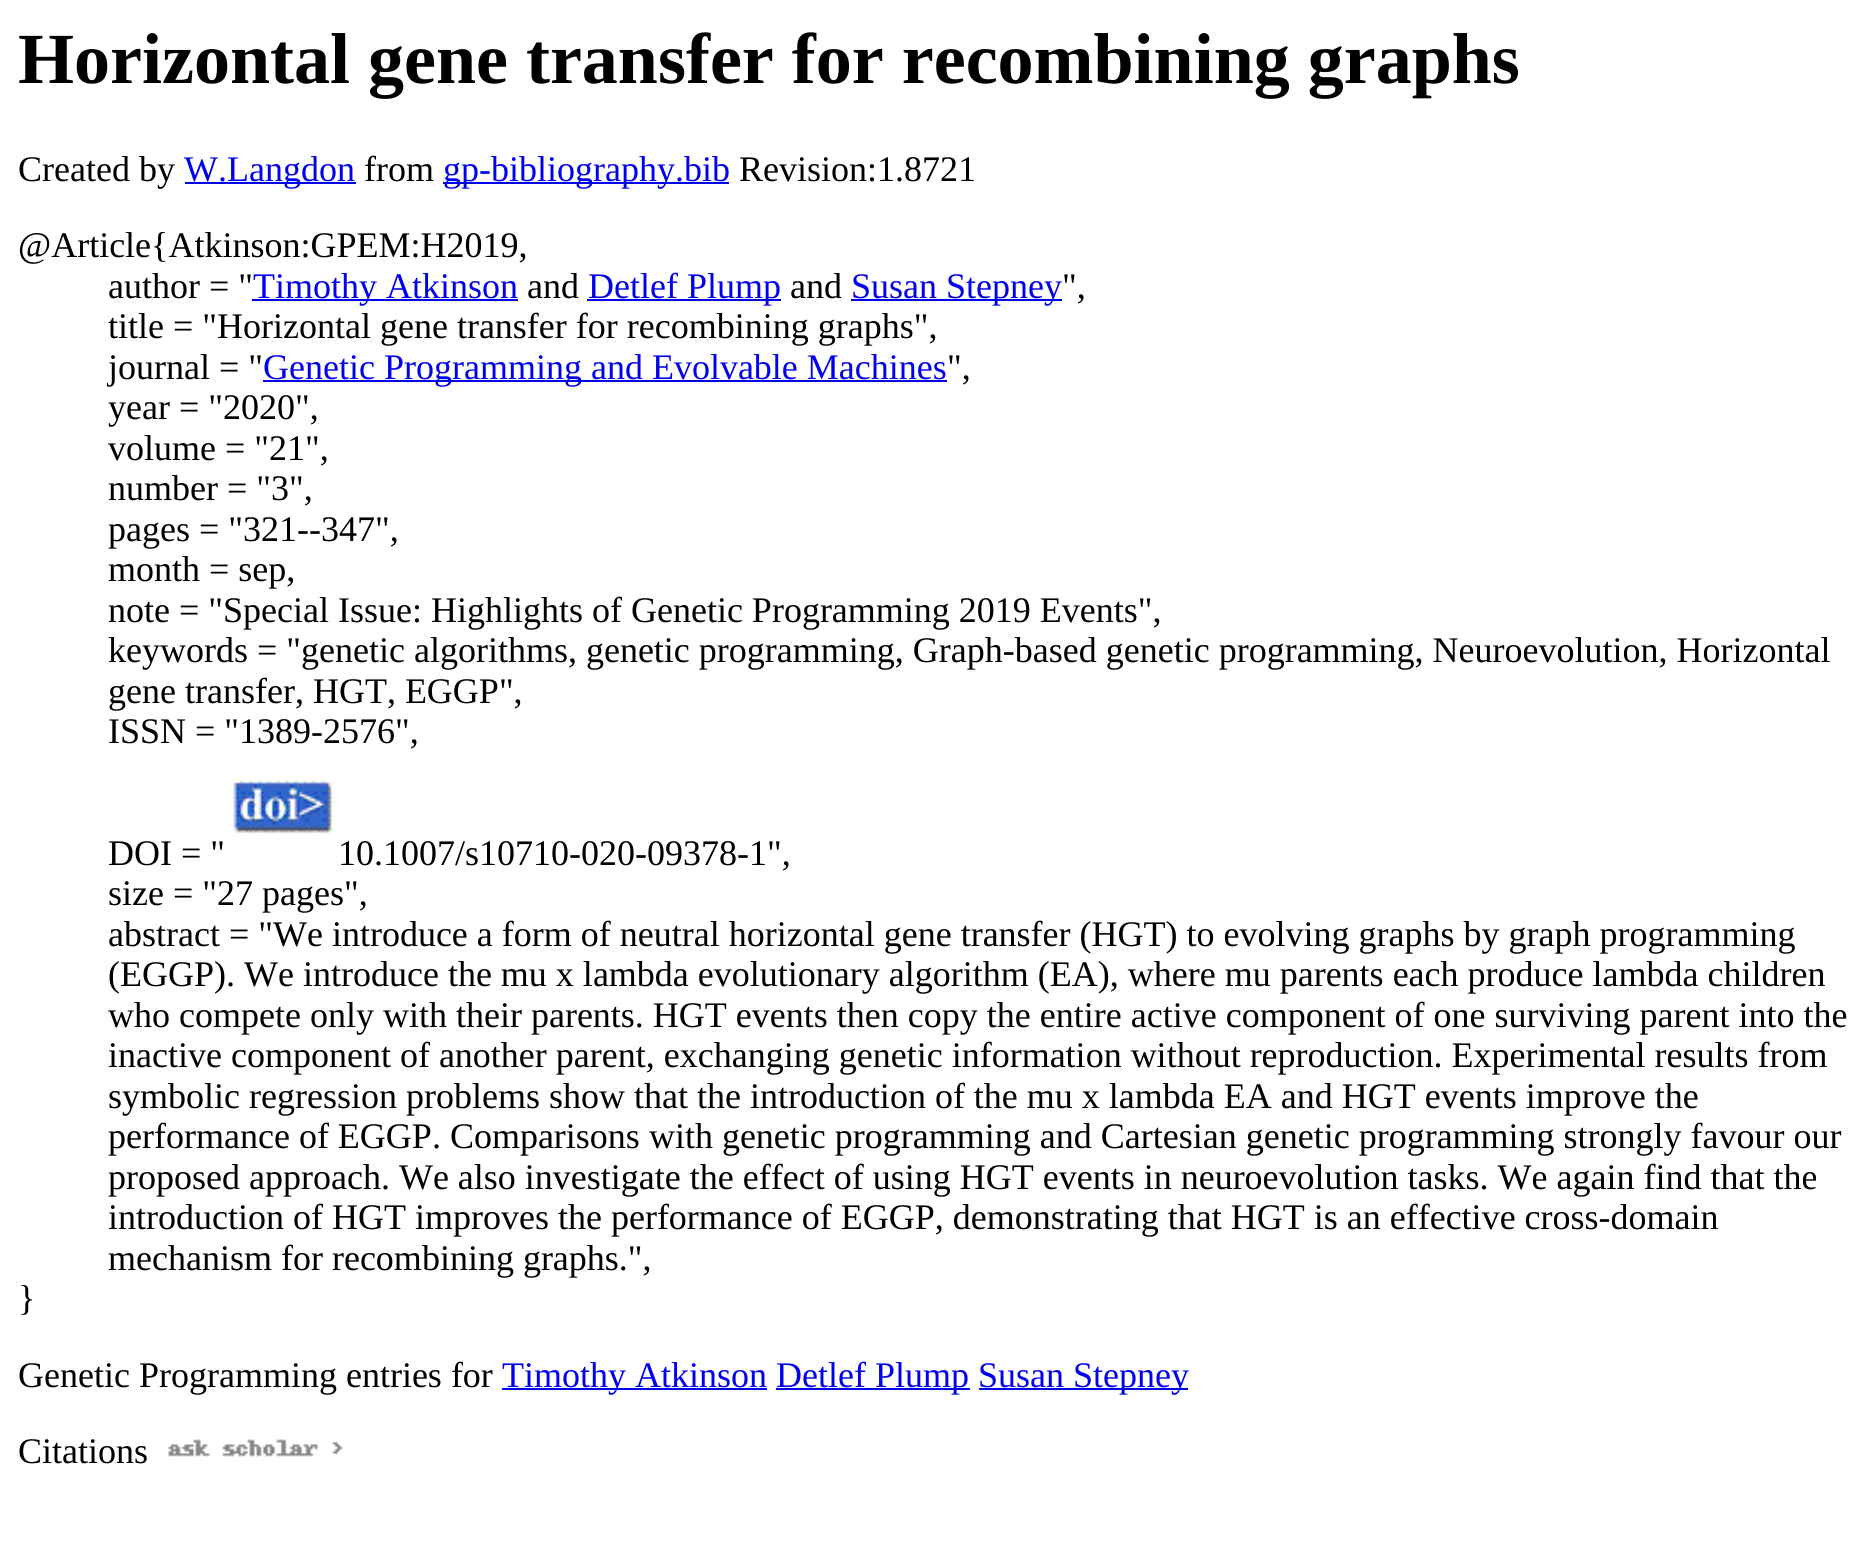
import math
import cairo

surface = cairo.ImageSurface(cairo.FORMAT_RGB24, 1871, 1552)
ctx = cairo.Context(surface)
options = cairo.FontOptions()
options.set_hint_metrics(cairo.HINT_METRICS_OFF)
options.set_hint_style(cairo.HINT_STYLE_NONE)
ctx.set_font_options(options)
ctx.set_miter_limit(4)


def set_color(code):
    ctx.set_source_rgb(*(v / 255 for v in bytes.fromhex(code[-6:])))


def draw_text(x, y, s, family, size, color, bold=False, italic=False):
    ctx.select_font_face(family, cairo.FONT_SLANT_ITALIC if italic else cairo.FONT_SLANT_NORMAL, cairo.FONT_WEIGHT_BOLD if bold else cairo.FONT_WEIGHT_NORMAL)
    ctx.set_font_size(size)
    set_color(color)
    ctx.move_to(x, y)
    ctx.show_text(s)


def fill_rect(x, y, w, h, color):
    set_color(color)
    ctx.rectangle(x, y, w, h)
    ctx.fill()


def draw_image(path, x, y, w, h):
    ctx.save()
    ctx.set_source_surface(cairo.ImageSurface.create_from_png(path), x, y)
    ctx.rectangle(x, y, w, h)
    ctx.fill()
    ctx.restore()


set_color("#ffffff")
ctx.paint()
draw_text(18, 83, "Horizontal gene transfer for recombining graphs", "Liberation Serif", 72, "#000000", bold=True)
draw_text(18, 181, "Created by", "Liberation Serif", 36, "#000000")
fill_rect(185, 182, 171, 2, "#0000ee")
draw_text(184, 181, "W.Langdon", "Liberation Serif", 36, "#0000ee")
draw_text(364, 181, "from", "Liberation Serif", 36, "#000000")
fill_rect(443, 182, 286, 2, "#0000ee")
draw_text(443, 181, "gp-bibliography.bib", "Liberation Serif", 36, "#0000ee")
draw_text(739, 181, "Revision:1.8721", "Liberation Serif", 36, "#000000")
draw_text(18, 257, "@Article{Atkinson:GPEM:H2019,", "Liberation Serif", 36, "#000000")
draw_text(108, 298, "author = \"", "Liberation Serif", 36, "#000000")
fill_rect(252, 299, 266, 2, "#0000ee")
draw_text(253, 298, "Timothy Atkinson", "Liberation Serif", 36, "#0000ee")
draw_text(527, 298, "and", "Liberation Serif", 36, "#000000")
fill_rect(587, 299, 194, 2, "#0000ee")
draw_text(588, 298, "Detlef Plump", "Liberation Serif", 36, "#0000ee")
draw_text(790, 298, "and", "Liberation Serif", 36, "#000000")
fill_rect(851, 299, 211, 2, "#0000ee")
draw_text(851, 298, "Susan Stepney", "Liberation Serif", 36, "#0000ee")
draw_text(1062, 298, "\",", "Liberation Serif", 36, "#000000")
draw_text(108, 338, "title = \"Horizontal gene transfer for recombining graphs\",", "Liberation Serif", 36, "#000000")
draw_text(108, 379, "journal = \"", "Liberation Serif", 36, "#000000")
fill_rect(263, 380, 684, 2, "#0000ee")
draw_text(263, 379, "Genetic Programming and Evolvable Machines", "Liberation Serif", 36, "#0000ee")
draw_text(947, 379, "\",", "Liberation Serif", 36, "#000000")
draw_text(108, 419, "year = \"2020\",", "Liberation Serif", 36, "#000000")
draw_text(108, 460, "volume = \"21\",", "Liberation Serif", 36, "#000000")
draw_text(108, 500, "number = \"3\",", "Liberation Serif", 36, "#000000")
draw_text(108, 541, "pages = \"321--347\",", "Liberation Serif", 36, "#000000")
draw_text(108, 581, "month = sep,", "Liberation Serif", 36, "#000000")
draw_text(108, 622, "note = \"Special Issue: Highlights of Genetic Programming 2019 Events\",", "Liberation Serif", 36, "#000000")
draw_text(108, 662, "keywords = \"genetic algorithms, genetic programming, Graph-based genetic programming, Neuroevolution, Horizontal", "Liberation Serif", 36, "#000000")
draw_text(108, 703, "gene transfer, HGT, EGGP\",", "Liberation Serif", 36, "#000000")
draw_text(108, 743, "ISSN = \"1389-2576\",", "Liberation Serif", 36, "#000000")
draw_image("assets/img1.png", 233, 780, 101, 54)
draw_text(108, 865, "DOI = \"", "Liberation Serif", 36, "#000000")
draw_text(338, 865, "10.1007/s10710-020-09378-1\",", "Liberation Serif", 36, "#000000")
draw_text(108, 905, "size = \"27 pages\",", "Liberation Serif", 36, "#000000")
draw_text(108, 946, "abstract = \"We introduce a form of neutral horizontal gene transfer (HGT) to evolving graphs by graph programming", "Liberation Serif", 36, "#000000")
draw_text(108, 986, "(EGGP). We introduce the mu x lambda evolutionary algorithm (EA), where mu parents each produce lambda children", "Liberation Serif", 36, "#000000")
draw_text(108, 1027, "who compete only with their parents. HGT events then copy the entire active component of one surviving parent into the", "Liberation Serif", 36, "#000000")
draw_text(108, 1067, "inactive component of another parent, exchanging genetic information without reproduction. Experimental results from", "Liberation Serif", 36, "#000000")
draw_text(108, 1108, "symbolic regression problems show that the introduction of the mu x lambda EA and HGT events improve the", "Liberation Serif", 36, "#000000")
draw_text(108, 1148, "performance of EGGP. Comparisons with genetic programming and Cartesian genetic programming strongly favour our", "Liberation Serif", 36, "#000000")
draw_text(108, 1189, "proposed approach. We also investigate the effect of using HGT events in neuroevolution tasks. We again find that the", "Liberation Serif", 36, "#000000")
draw_text(108, 1229, "introduction of HGT improves the performance of EGGP, demonstrating that HGT is an effective cross-domain", "Liberation Serif", 36, "#000000")
draw_text(108, 1270, "mechanism for recombining graphs.\",", "Liberation Serif", 36, "#000000")
draw_text(18, 1310, "}", "Liberation Serif", 36, "#000000")
draw_text(18, 1387, "Genetic Programming entries for", "Liberation Serif", 36, "#000000")
fill_rect(502, 1388, 265, 2, "#0000ee")
draw_text(502, 1387, "Timothy Atkinson", "Liberation Serif", 36, "#0000ee")
fill_rect(776, 1388, 194, 2, "#0000ee")
draw_text(776, 1387, "Detlef Plump", "Liberation Serif", 36, "#0000ee")
fill_rect(979, 1388, 209, 2, "#0000ee")
draw_text(978, 1387, "Susan Stepney", "Liberation Serif", 36, "#0000ee")
draw_text(18, 1463, "Citations", "Liberation Serif", 36, "#000000")
draw_image("assets/img2.png", 168, 1439, 175, 18)
surface.write_to_png("output.png")
